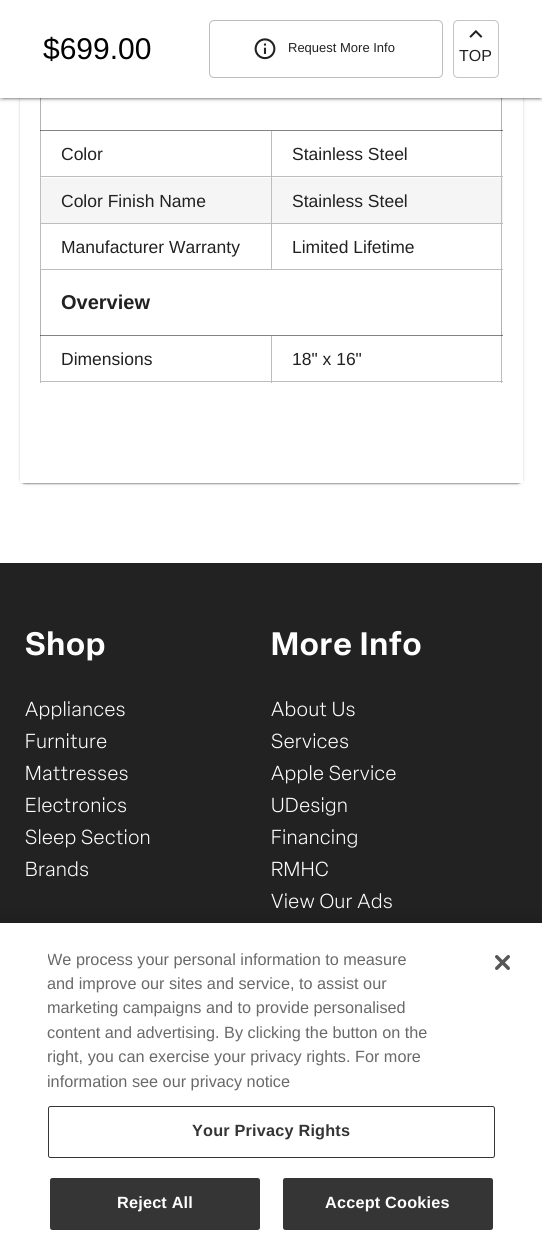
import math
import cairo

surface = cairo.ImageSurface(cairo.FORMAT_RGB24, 542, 1249)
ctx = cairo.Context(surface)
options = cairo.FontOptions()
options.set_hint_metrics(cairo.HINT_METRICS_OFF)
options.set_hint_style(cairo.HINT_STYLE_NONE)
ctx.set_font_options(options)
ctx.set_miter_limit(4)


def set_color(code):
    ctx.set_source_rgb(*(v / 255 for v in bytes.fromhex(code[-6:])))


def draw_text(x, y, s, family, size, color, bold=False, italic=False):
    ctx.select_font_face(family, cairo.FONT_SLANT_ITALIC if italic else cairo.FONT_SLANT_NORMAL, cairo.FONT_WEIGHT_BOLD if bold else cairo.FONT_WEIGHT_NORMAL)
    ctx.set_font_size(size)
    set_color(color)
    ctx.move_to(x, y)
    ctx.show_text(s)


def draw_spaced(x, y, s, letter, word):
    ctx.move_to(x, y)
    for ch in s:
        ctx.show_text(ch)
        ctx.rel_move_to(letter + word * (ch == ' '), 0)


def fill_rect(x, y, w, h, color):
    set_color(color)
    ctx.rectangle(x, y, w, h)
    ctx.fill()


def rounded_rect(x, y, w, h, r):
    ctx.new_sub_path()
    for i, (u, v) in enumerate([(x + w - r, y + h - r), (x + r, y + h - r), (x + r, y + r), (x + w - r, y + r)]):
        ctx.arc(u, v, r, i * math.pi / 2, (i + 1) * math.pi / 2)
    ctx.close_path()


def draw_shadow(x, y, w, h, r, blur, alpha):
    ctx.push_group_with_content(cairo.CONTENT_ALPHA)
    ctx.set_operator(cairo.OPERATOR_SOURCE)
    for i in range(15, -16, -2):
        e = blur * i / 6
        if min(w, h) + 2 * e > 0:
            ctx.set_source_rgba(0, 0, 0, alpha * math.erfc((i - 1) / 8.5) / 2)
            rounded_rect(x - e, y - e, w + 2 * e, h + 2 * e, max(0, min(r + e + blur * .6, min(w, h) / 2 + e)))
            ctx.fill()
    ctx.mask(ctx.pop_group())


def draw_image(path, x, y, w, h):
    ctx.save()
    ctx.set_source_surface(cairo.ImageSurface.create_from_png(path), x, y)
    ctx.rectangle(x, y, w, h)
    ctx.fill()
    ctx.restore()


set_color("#ffffff")
ctx.paint()
set_color("#000000")
draw_shadow(20, -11, 503, 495, 5, 2, 0.12)
draw_shadow(20, -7, 503, 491, 5, 0.5, 0.14)
draw_shadow(21, -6, 500, 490, 4, 0.5, 0.2)
fill_rect(20, 98, 503, 385, "#ffffff")
fill_rect(40, 98, 1, 33, "#b3b3b3")
fill_rect(501, 98, 1, 33, "#b3b3b3")
set_color("#000000")
draw_shadow(0, 1, 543, 98, 0, 3, 0.12)
draw_shadow(0, 3, 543, 97, 0, 1, 0.14)
draw_shadow(3, 6, 537, 93, 0, 0.5, 0.2)
fill_rect(0, 0, 542, 98, "#ffffff")
draw_text(43, 59, "$699.00", "Arimo", 30, "#000000")
rounded_rect(209.5, 20.5, 233, 57, 4.5)
set_color("#bdbdbd")
ctx.set_line_width(1)
ctx.stroke()
draw_image("assets/img1.png", 254, 38, 22, 22)
draw_text(288, 52, "Request More Info", "Arimo", 13, "#212121")
rounded_rect(453.5, 20.5, 45, 57, 4.5)
set_color("#c4c4c4")
ctx.stroke()
draw_image("assets/img2.png", 469, 30, 14, 8)
draw_text(459, 61, "TOP", "Arimo", 16, "#212121")
fill_rect(40, 269, 1, 67, "#b3b3b3")
fill_rect(501, 269, 1, 67, "#b3b3b3")
fill_rect(271, 130, 232, 1, "#848484")
fill_rect(271, 176, 232, 1, "#bdbdbd")
fill_rect(41, 178, 462, 45, "#f5f5f5")
fill_rect(271, 223, 232, 1, "#bdbdbd")
fill_rect(501, 223, 1, 47, "#bdbdbd")
fill_rect(271, 269, 232, 1, "#bdbdbd")
fill_rect(271, 223, 1, 47, "#bdbdbd")
fill_rect(40, 223, 233, 1, "#bdbdbd")
fill_rect(271, 176, 1, 48, "#bdbdbd")
fill_rect(40, 176, 233, 1, "#bdbdbd")
fill_rect(271, 130, 1, 48, "#bdbdbd")
fill_rect(40, 130, 233, 1, "#848484")
fill_rect(40, 269, 233, 1, "#bdbdbd")
fill_rect(40, 223, 1, 47, "#bdbdbd")
fill_rect(40, 176, 1, 48, "#bdbdbd")
fill_rect(40, 130, 1, 48, "#bdbdbd")
fill_rect(40, 130, 1, 1, "#5c5c5c")
draw_text(61, 160, "Color", "Arimo", 17.5, "#212121")
fill_rect(501, 176, 1, 48, "#bdbdbd")
fill_rect(501, 130, 1, 48, "#bdbdbd")
fill_rect(501, 130, 1, 1, "#5c5c5c")
draw_text(292, 160, "Stainless Steel", "Arimo", 17.5, "#212121")
draw_text(61, 207, "Color Finish Name", "Arimo", 17.5, "#212121")
draw_text(292, 207, "Stainless Steel", "Arimo", 17.5, "#212121")
draw_text(61, 253, "Manufacturer Warranty", "Arimo", 17.5, "#212121")
draw_text(292, 253, "Limited Lifetime", "Arimo", 17.5, "#212121")
draw_text(61, 309, "Overview", "Arimo", 20, "#212121", bold=True)
fill_rect(271, 335, 232, 1, "#848484")
fill_rect(501, 335, 1, 48, "#bdbdbd")
fill_rect(271, 381, 232, 1, "#bdbdbd")
fill_rect(271, 335, 1, 48, "#bdbdbd")
fill_rect(40, 335, 233, 1, "#848484")
fill_rect(40, 381, 233, 1, "#bdbdbd")
fill_rect(40, 335, 1, 48, "#bdbdbd")
fill_rect(40, 335, 1, 1, "#5c5c5c")
draw_text(61, 365, "Dimensions", "Arimo", 17.5, "#212121")
fill_rect(501, 335, 1, 1, "#5c5c5c")
draw_text(292, 365, "18\" x 16\"", "Arimo", 17.5, "#212121")
fill_rect(0, 563, 542, 360, "#222222")
ctx.select_font_face("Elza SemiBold")
ctx.set_font_size(32)
set_color("#ffffff")
draw_spaced(25, 655, "Shop", 1, 0)
ctx.select_font_face("Elza Light")
ctx.set_font_size(20)
draw_spaced(25, 716, "Appliances", 0.6, 0)
draw_spaced(25, 748, "Furniture", 0.6, 0)
draw_spaced(25, 780, "Mattresses", 0.6, 0)
draw_spaced(25, 812, "Electronics", 0.6, 0)
draw_spaced(25, 844, "Sleep Section", 0.6, 0)
draw_spaced(25, 876, "Brands", 0.6, 0)
ctx.select_font_face("Elza SemiBold")
ctx.set_font_size(32)
draw_spaced(271, 655, "More Info", 1, 0)
ctx.select_font_face("Elza Light")
ctx.set_font_size(20)
draw_spaced(271, 716, "About Us", 0.6, 0)
draw_spaced(271, 748, "Services", 0.6, 0)
draw_spaced(271, 780, "Apple Service", 0.6, 0)
draw_spaced(271, 812, "UDesign", 0.6, 0)
draw_spaced(271, 844, "Financing", 0.6, 0)
draw_spaced(271, 876, "RMHC", 0.6, 0)
draw_spaced(271, 908, "View Our Ads", 0.6, 0)
set_color("#000000")
draw_shadow(0, 923, 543, 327, 0, 11, 0.2)
fill_rect(0, 923, 542, 326, "#ffffff")
ctx.save()
ctx.rectangle(48, 948, 423, 146)
ctx.clip()
draw_text(47, 965, "We process your personal information to measure", "Arimo", 16.25, "#696969")
ctx.restore()
draw_text(47, 989, "and improve our sites and service, to assist our", "Arimo", 16.25, "#696969")
draw_text(47, 1013, "marketing campaigns and to provide personalised", "Arimo", 16.25, "#696969")
draw_text(47, 1038, "content and advertising. By clicking the button on the", "Arimo", 16.25, "#696969")
draw_text(47, 1062, "right, you can exercise your privacy rights. For more", "Arimo", 16.25, "#696969")
draw_text(47, 1087, "information see our privacy notice", "Arimo", 16.25, "#696969")
rounded_rect(48.5, 1106.5, 446, 51, 2)
set_color("#353535")
ctx.stroke()
ctx.select_font_face("Arimo", cairo.FONT_SLANT_NORMAL, cairo.FONT_WEIGHT_BOLD)
draw_spaced(192, 1136, "Your Privacy Rights", 0.2, 0)
rounded_rect(50.5, 1178.5, 209, 51, 2)
ctx.fill_preserve()
ctx.stroke()
set_color("#ffffff")
draw_spaced(117, 1208, "Reject All", 0.2, 0)
set_color("#353535")
rounded_rect(283.5, 1178.5, 209, 51, 2)
ctx.fill_preserve()
ctx.stroke()
set_color("#ffffff")
draw_spaced(325, 1208, "Accept Cookies", 0.2, 0)
draw_image("assets/img3.png", 495, 955, 15, 15)
surface.write_to_png("output.png")
